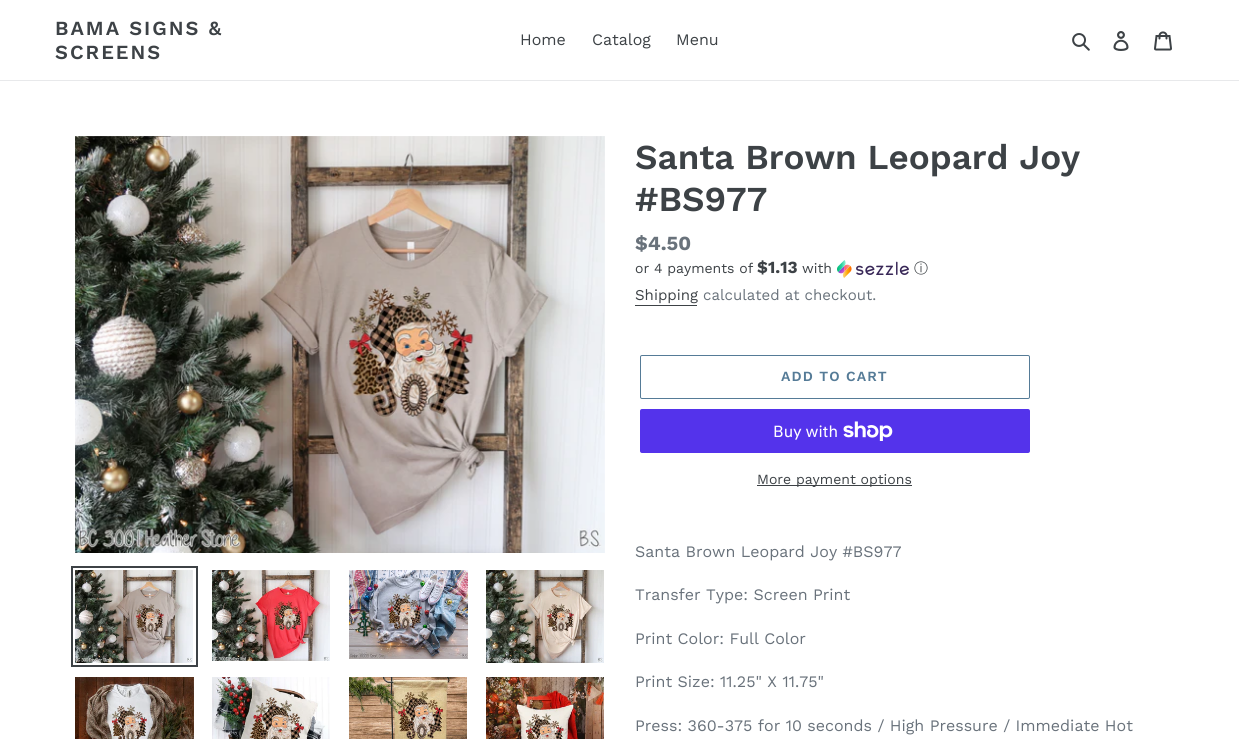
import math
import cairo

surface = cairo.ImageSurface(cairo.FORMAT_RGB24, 1239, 739)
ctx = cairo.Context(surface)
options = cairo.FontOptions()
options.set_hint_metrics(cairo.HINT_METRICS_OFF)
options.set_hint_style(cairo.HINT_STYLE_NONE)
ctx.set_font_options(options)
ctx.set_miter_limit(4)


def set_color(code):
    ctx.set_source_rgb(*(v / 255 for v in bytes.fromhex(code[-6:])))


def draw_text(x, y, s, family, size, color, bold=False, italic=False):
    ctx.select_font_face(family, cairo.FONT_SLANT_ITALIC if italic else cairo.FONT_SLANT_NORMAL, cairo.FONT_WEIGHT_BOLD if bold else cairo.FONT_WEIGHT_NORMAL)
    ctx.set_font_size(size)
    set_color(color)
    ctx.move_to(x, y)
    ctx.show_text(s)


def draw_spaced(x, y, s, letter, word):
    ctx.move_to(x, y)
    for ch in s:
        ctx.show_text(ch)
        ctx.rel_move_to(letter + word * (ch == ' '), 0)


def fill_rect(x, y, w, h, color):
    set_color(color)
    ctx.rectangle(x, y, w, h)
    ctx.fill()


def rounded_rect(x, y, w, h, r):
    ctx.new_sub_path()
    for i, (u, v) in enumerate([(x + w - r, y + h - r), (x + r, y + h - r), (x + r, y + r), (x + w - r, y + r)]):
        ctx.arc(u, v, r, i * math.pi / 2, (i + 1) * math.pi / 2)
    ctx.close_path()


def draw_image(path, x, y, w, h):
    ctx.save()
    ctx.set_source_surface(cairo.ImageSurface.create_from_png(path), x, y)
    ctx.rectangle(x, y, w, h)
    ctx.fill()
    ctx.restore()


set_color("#ffffff")
ctx.paint()
fill_rect(0, 80, 1239, 1, "#e8e9eb")
ctx.select_font_face("Work Sans SemiBold")
ctx.set_font_size(20)
set_color("#3d4246")
draw_spaced(55, 35, "BAMA SIGNS &", 2, 0)
draw_spaced(55, 59, "SCREENS", 2, 0)
draw_text(520, 45, "Home", "Work Sans", 16, "#3d4246")
draw_text(592, 45, "Catalog", "Work Sans", 16, "#3d4246")
draw_text(676, 45, "Menu", "Work Sans", 16, "#3d4246")
draw_image("assets/img1.png", 1072, 33, 18, 18)
draw_image("assets/img2.png", 1113, 31, 16, 20)
draw_image("assets/img3.png", 1154, 31, 18, 20)
draw_image("assets/img4.png", 75, 136, 530, 417)
ctx.rectangle(72, 567, 125, 99)
ctx.stroke()
draw_image("assets/img5.png", 75, 570, 118, 93)
draw_image("assets/img6.png", 212, 570, 118, 91)
draw_image("assets/img7.png", 349, 570, 119, 89)
draw_image("assets/img8.png", 486, 570, 118, 93)
draw_image("assets/img9.png", 75, 677, 119, 62)
draw_image("assets/img10.png", 212, 677, 118, 62)
draw_image("assets/img11.png", 349, 677, 118, 62)
draw_image("assets/img12.png", 486, 677, 118, 62)
draw_text(635, 169, "Santa Brown Leopard Joy", "Work Sans SemiBold", 35, "#3d4246")
draw_text(635, 211, "#BS977", "Work Sans SemiBold", 35, "#3d4246")
draw_text(635, 250, "$4.50", "Work Sans", 20, "#69727b", bold=True)
draw_text(635, 273, "or 4 payments of", "Work Sans", 14, "#3d4246")
draw_text(757, 273, "$1.13", "Work Sans", 17, "#3d4246", bold=True)
draw_text(802, 273, "with", "Work Sans", 14, "#3d4246")
draw_image("assets/img13.png", 837, 260, 72, 18)
draw_text(914, 273, "ⓘ", "WenQuanYi Zen Hei Medium", 14, "#3d4246")
draw_text(635, 300, "Shipping", "Work Sans", 15, "#3d4246")
fill_rect(635, 305, 62, 1, "#3d4246")
draw_text(703, 300, "calculated at checkout.", "Work Sans", 15, "#69727b")
rounded_rect(640.5, 355.5, 389, 43, 1.5)
set_color("#557b97")
ctx.set_line_width(1)
ctx.stroke()
ctx.select_font_face("Work Sans SemiBold")
ctx.set_font_size(14)
draw_spaced(781, 381, "ADD TO CART", 1.1, 0)
set_color("#5433eb")
rounded_rect(640, 409, 390, 44, 2)
ctx.fill()
draw_text(773, 437, "Buy with", "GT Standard", 16, "#ffffff")
draw_image("assets/img14.png", 843, 421, 50, 20)
fill_rect(757, 485, 155, 1, "#3d4246")
draw_text(757, 484, "More payment options", "Work Sans", 14, "#3d4246")
draw_text(635, 557, "Santa Brown Leopard Joy #BS977", "Work Sans", 16, "#69727b")
draw_text(635, 600, "Transfer Type: Screen Print", "Work Sans", 16, "#69727b")
draw_text(635, 644, "Print Color: Full Color", "Work Sans", 16, "#69727b")
draw_text(635, 687, "Print Size: 11.25\" X 11.75\"", "Work Sans", 16, "#69727b")
draw_text(635, 731, "Press: 360-375 for 10 seconds / High Pressure / Immediate Hot", "Work Sans", 16, "#69727b")
surface.write_to_png("output.png")
